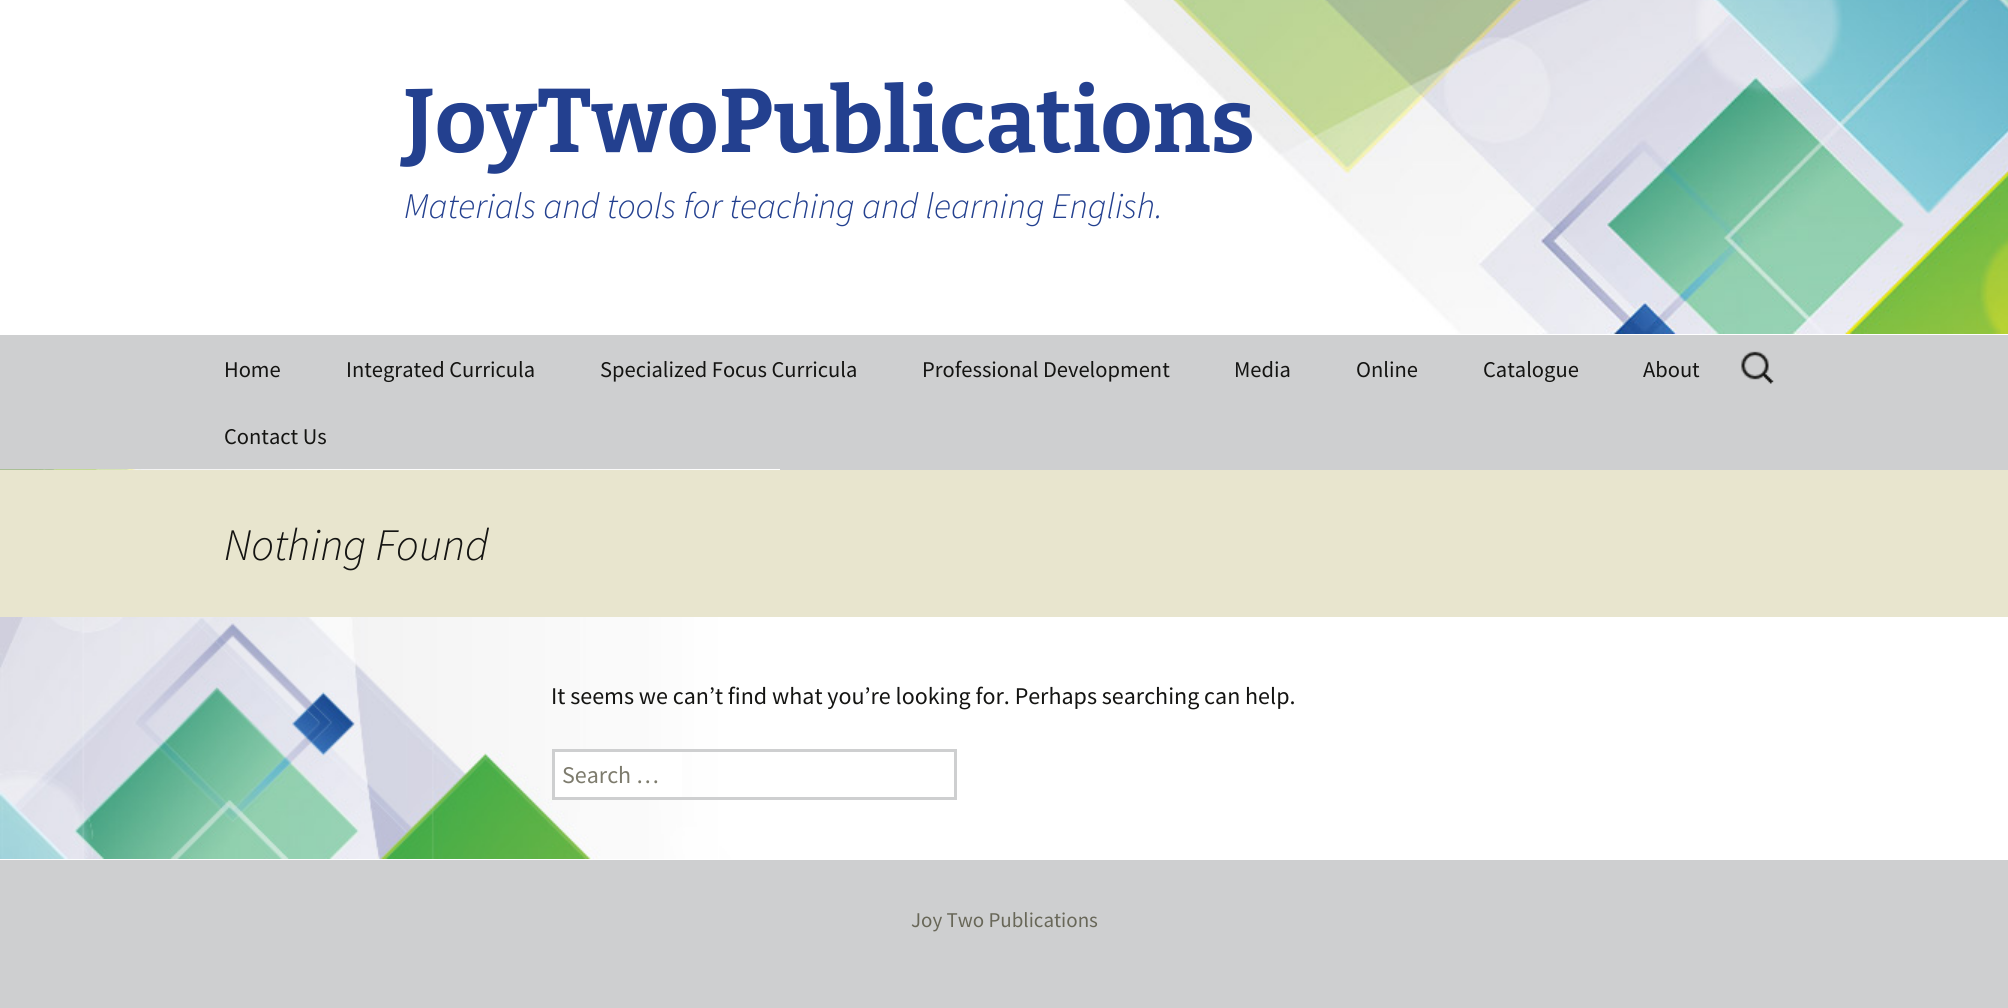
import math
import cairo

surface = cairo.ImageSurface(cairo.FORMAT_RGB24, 2008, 1008)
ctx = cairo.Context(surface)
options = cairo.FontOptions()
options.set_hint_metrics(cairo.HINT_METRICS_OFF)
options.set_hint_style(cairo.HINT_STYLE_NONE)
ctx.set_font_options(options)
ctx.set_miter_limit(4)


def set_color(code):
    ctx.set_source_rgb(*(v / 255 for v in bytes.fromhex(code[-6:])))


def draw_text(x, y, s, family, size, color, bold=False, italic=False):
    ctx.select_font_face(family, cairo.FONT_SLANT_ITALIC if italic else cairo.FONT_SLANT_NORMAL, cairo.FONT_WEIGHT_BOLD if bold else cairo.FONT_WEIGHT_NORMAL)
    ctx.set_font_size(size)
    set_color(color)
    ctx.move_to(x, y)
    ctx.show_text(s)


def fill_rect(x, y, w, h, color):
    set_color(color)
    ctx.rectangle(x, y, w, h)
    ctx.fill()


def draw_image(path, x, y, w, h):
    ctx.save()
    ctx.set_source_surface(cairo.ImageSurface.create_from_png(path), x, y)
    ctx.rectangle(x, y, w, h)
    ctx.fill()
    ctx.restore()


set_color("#ffffff")
ctx.paint()
draw_image("assets/img1.png", 1124, 0, 884, 334)
draw_text(404, 152, "JoyTwoPublications", "Bitter Thin", 90, "#23408f")
draw_text(404, 218, "Materials and tools for teaching and learning English.", "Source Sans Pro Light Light", 36, "#23408f", italic=True)
fill_rect(0, 335, 2008, 135, "#cecfd0")
draw_text(224, 377, "Home", "Source Sans Pro", 22.5, "#141412")
draw_text(346, 377, "Integrated Curricula", "Source Sans Pro", 22.5, "#141412")
draw_text(600, 377, "Specialized Focus Curricula", "Source Sans Pro", 22.5, "#141412")
draw_text(922, 377, "Professional Development", "Source Sans Pro", 22.5, "#141412")
draw_text(1234, 377, "Media", "Source Sans Pro", 22.5, "#141412")
draw_text(1356, 377, "Online", "Source Sans Pro", 22.5, "#141412")
draw_text(1483, 377, "Catalogue", "Source Sans Pro", 22.5, "#141412")
draw_text(1643, 377, "About", "Source Sans Pro", 22.5, "#141412")
draw_text(224, 444, "Contact Us", "Source Sans Pro", 22.5, "#141412")
draw_image("assets/img2.png", 1741, 351, 33, 33)
draw_image("assets/img3.png", 0, 469, 780, 390)
fill_rect(0, 470, 2008, 147, "#e8e5ce")
draw_text(224, 560, "Nothing Found", "Source Sans Pro Light Light", 45, "#141412", italic=True)
draw_text(551, 704, "It seems we can’t find what you’re looking for. Perhaps searching can help.", "Source Sans Pro", 24, "#141412")
fill_rect(555, 752, 127, 45, "#ffffff")
ctx.rectangle(553.5, 750.5, 402, 48)
set_color("#cecfd0")
ctx.set_line_width(3)
ctx.stroke()
draw_text(562, 783, "Search …", "Source Sans Pro", 24, "#7d7b6d")
fill_rect(0, 860, 2008, 148, "#cecfd0")
draw_text(911, 927, "Joy Two Publications", "Source Sans Pro", 21, "#686758")
surface.write_to_png("output.png")
